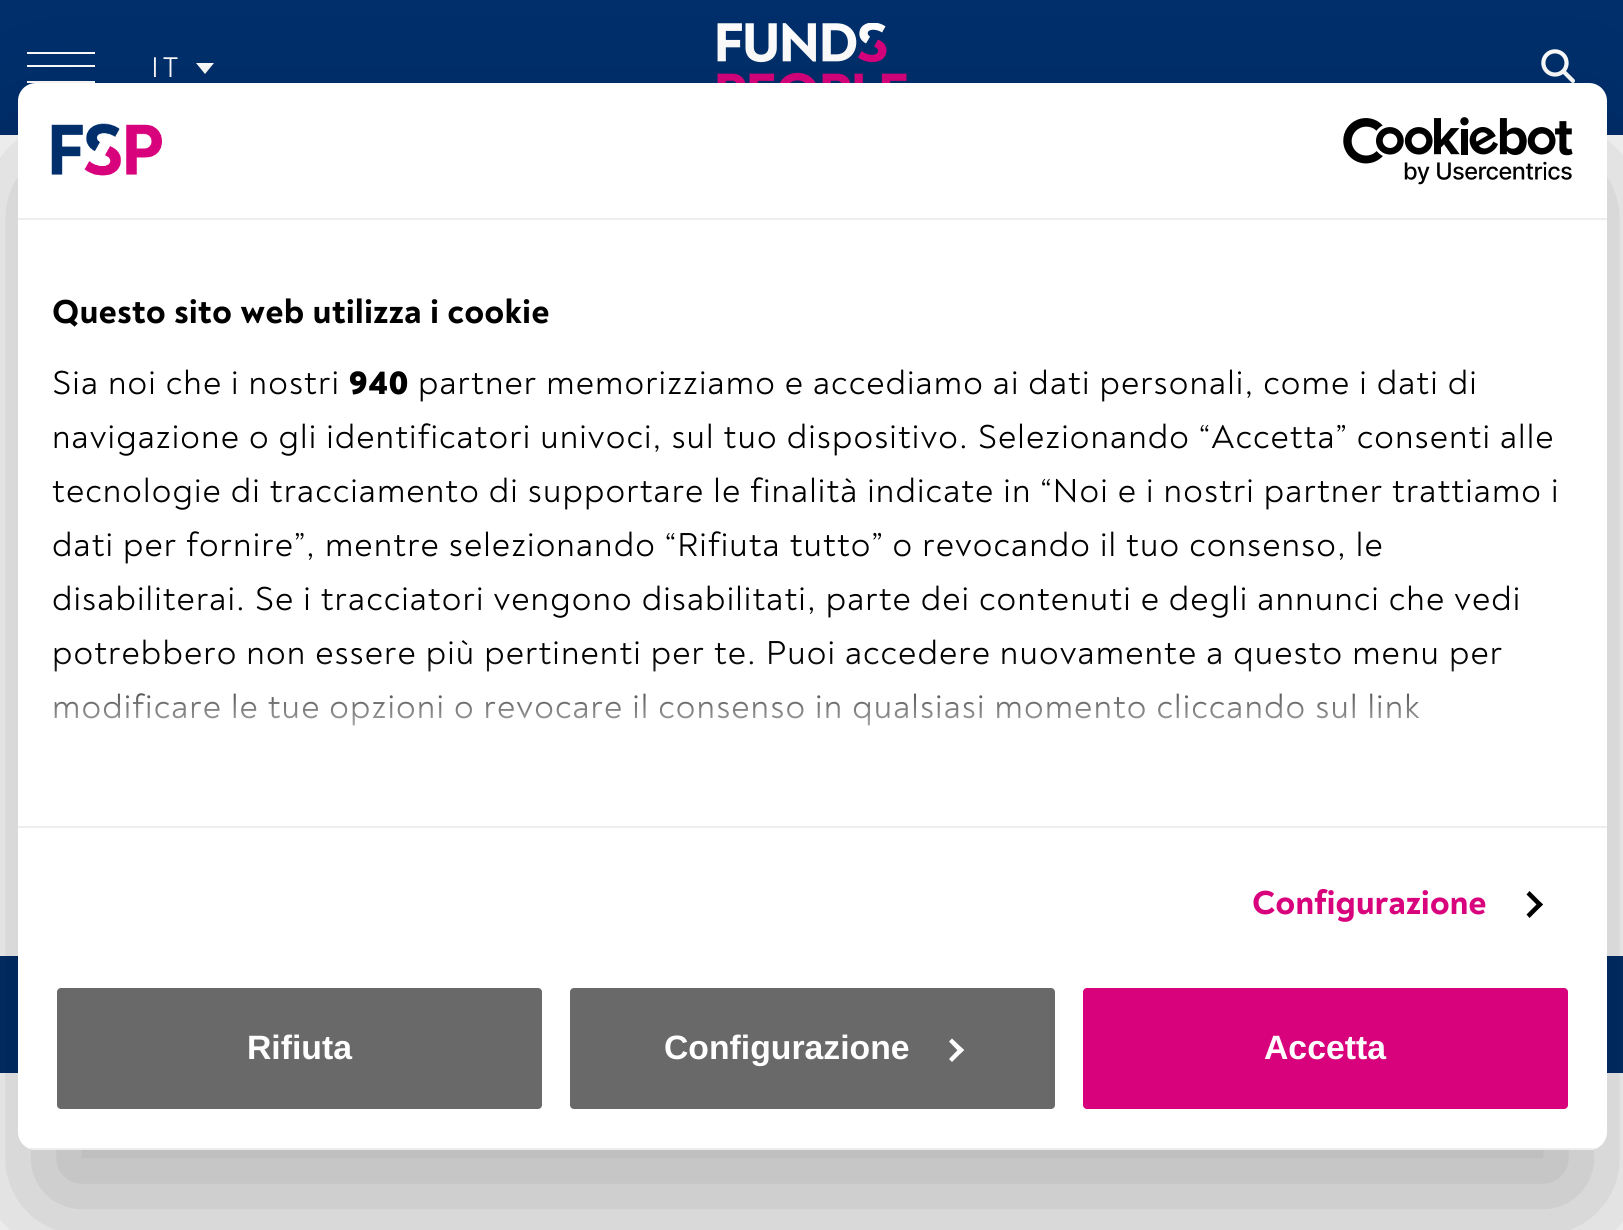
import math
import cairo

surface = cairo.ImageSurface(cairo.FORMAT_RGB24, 1623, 1230)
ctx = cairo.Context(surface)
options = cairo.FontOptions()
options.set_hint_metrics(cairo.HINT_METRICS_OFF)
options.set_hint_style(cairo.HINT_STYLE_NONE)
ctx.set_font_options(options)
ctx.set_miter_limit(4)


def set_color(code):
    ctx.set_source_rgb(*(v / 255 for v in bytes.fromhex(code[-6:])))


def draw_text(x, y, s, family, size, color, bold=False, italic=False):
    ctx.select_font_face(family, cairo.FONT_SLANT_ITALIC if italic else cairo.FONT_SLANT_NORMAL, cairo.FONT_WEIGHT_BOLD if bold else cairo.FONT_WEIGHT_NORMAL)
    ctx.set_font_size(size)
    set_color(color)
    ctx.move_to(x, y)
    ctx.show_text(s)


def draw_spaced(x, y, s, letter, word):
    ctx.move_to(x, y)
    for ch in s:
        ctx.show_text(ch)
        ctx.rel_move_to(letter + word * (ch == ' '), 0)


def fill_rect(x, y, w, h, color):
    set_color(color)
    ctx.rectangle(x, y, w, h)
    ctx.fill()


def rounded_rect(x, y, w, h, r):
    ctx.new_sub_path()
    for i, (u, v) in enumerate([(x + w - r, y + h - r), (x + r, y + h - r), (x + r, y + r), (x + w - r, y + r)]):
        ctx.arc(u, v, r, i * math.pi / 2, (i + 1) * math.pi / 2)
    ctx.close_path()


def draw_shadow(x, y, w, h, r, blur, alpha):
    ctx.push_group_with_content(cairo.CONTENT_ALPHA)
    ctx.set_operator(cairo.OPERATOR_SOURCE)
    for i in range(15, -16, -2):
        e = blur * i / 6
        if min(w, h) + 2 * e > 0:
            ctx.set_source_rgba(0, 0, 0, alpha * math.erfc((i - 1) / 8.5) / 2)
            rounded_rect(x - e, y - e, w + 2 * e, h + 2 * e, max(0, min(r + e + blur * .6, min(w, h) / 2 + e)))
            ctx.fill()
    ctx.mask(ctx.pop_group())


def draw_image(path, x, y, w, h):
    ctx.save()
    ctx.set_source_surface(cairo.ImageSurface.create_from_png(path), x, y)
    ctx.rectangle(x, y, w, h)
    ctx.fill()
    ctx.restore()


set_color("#ffffff")
ctx.paint()
fill_rect(0, 0, 1623, 135, "#002f6c")
fill_rect(27, 52, 68, 2, "#ffffff")
fill_rect(27, 65, 68, 2, "#ffffff")
fill_rect(27, 81, 68, 2, "#ffffff")
ctx.select_font_face("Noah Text")
ctx.set_font_size(29)
draw_spaced(151, 77, "IT", 4, 0)
ctx.new_path()
ctx.move_to(196, 63)
ctx.line_to(214, 63)
ctx.line_to(205, 74)
ctx.close_path()
ctx.fill()
draw_image("assets/img1.png", 717, 23, 190, 60)
draw_image("assets/img2.png", 1541, 49, 34, 34)
fill_rect(0, 956, 1623, 117, "#002f6c")
set_color("#000000")
draw_shadow(18, 155, 1589, 1067, 18, 76.5, 0.3)
set_color("#ffffff")
rounded_rect(18, 83, 1589, 1067, 18)
ctx.fill()
fill_rect(18, 218, 1589, 2, "#eeeeee")
draw_image("assets/img3.png", 51, 123, 111, 53)
draw_image("assets/img4.png", 1343, 117, 230, 68)
fill_rect(18, 826, 1589, 2, "#eeeeee")
ctx.select_font_face("Noah Text ExtraBold")
ctx.set_font_size(33.75)
set_color("#000000")
draw_spaced(52, 323, "Questo sito web utilizza i cookie", 0.55, 0)
ctx.select_font_face("Noah Text")
draw_spaced(52, 394, "Sia noi che i nostri", 1.12, 0)
ctx.select_font_face("Noah Text Black")
draw_spaced(349, 394, "940", 1.12, 0)
ctx.select_font_face("Noah Text")
draw_spaced(418, 394, "partner memorizziamo e accediamo ai dati personali, come i dati di", 1.12, 0)
draw_spaced(52, 448, "navigazione o gli identificatori univoci, sul tuo dispositivo. Selezionando “Accetta” consenti alle", 1.12, 0)
draw_spaced(52, 502, "tecnologie di tracciamento di supportare le finalità indicate in “Noi e i nostri partner trattiamo i", 1.12, 0)
draw_spaced(52, 556, "dati per fornire”, mentre selezionando “Rifiuta tutto” o revocando il tuo consenso, le", 1.12, 0)
draw_spaced(52, 610, "disabiliterai. Se i tracciatori vengono disabilitati, parte dei contenuti e degli annunci che vedi", 1.12, 0)
draw_spaced(52, 664, "potrebbero non essere più pertinenti per te. Puoi accedere nuovamente a questo menu per", 1.12, 0)
draw_spaced(52, 718, "modificare le tue opzioni o revocare il consenso in qualsiasi momento cliccando sul link", 1.12, 0)
gradient = cairo.LinearGradient(798, 826, 798, 657)
gradient.add_color_stop_rgba(0, 1, 1, 1, 1)
gradient.add_color_stop_rgba(0.5, 1, 1, 1, 0.8)
gradient.add_color_stop_rgba(1, 1, 1, 1, 0)
ctx.set_source(gradient)
ctx.rectangle(54, 659, 1441, 67)
ctx.fill()
ctx.select_font_face("Noah Text ExtraBold")
set_color("#d9027d")
draw_spaced(1252, 914, "Configurazione", 0.25, 0)
set_color("#000000")
ctx.new_path()
ctx.move_to(1529.5, 891)
ctx.line_to(1543, 904.5)
ctx.line_to(1539.5, 907.5)
ctx.line_to(1526.5, 894.5)
ctx.close_path()
ctx.fill()
ctx.new_path()
ctx.move_to(1539.5, 901.5)
ctx.line_to(1543, 904.5)
ctx.line_to(1529.5, 918)
ctx.line_to(1526.5, 914.5)
ctx.close_path()
ctx.fill()
ctx.save()
rounded_rect(18, 83, 1589, 1067, 18)
ctx.clip()
fill_rect(28, 1148, 1569, 2, "#eeeeee")
ctx.restore()
set_color("#696969")
rounded_rect(54.5, 985.5, 490, 126, 6.5)
ctx.fill_preserve()
set_color("#ffffff")
ctx.set_line_width(5)
ctx.stroke()
draw_text(247, 1059, "Rifiuta", "Liberation Sans", 33.75, "#ffffff", bold=True)
set_color("#696969")
rounded_rect(567.5, 985.5, 490, 126, 6.5)
ctx.fill_preserve()
set_color("#ffffff")
ctx.stroke()
draw_text(664, 1059, "Configurazione", "Liberation Sans", 33.75, "#ffffff", bold=True)
ctx.new_path()
ctx.move_to(952, 1038.5)
ctx.line_to(964, 1050)
ctx.line_to(960.5, 1053.5)
ctx.line_to(949, 1041.5)
ctx.close_path()
ctx.fill()
ctx.new_path()
ctx.move_to(960.5, 1047)
ctx.line_to(964, 1050)
ctx.line_to(952, 1062)
ctx.line_to(949, 1059)
ctx.close_path()
ctx.fill()
set_color("#d9027d")
rounded_rect(1080.5, 985.5, 490, 126, 6.5)
ctx.fill_preserve()
set_color("#ffffff")
ctx.stroke()
draw_text(1264, 1059, "Accetta", "Liberation Sans", 33.75, "#ffffff", bold=True)
surface.write_to_png("output.png")
